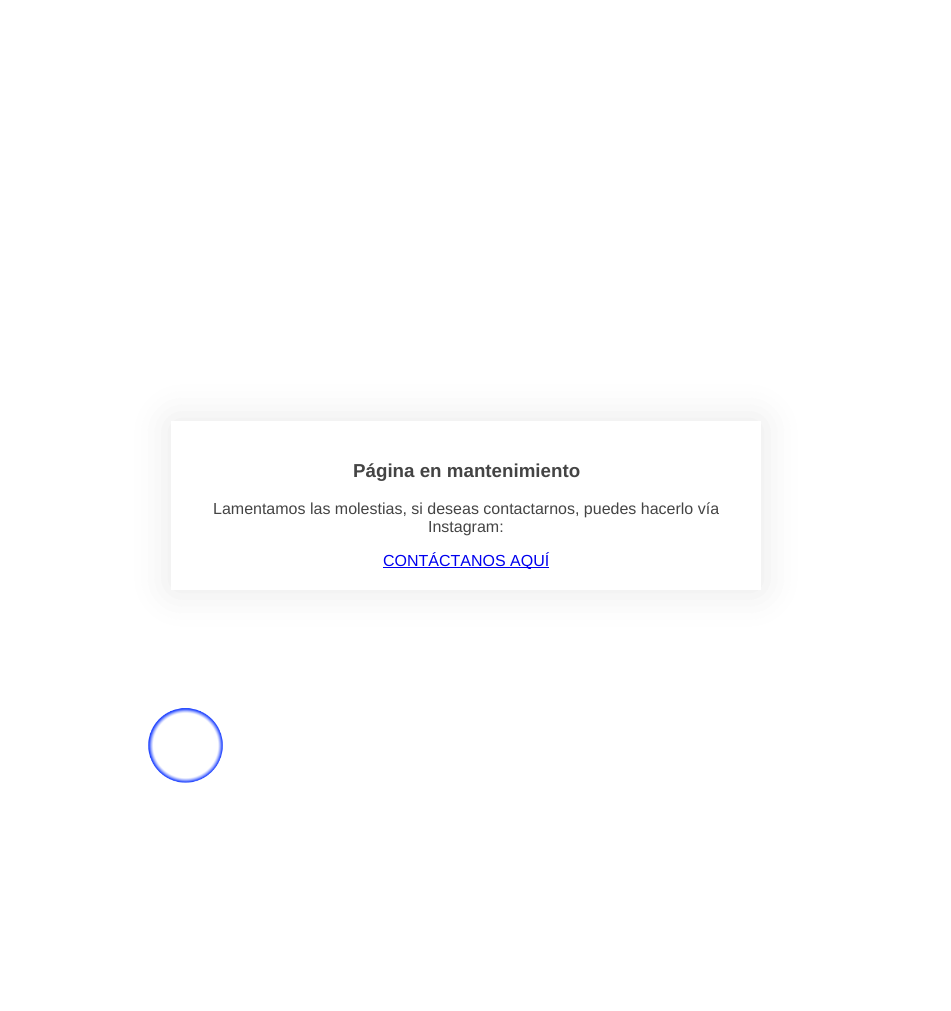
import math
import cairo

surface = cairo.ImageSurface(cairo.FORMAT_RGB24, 951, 1011)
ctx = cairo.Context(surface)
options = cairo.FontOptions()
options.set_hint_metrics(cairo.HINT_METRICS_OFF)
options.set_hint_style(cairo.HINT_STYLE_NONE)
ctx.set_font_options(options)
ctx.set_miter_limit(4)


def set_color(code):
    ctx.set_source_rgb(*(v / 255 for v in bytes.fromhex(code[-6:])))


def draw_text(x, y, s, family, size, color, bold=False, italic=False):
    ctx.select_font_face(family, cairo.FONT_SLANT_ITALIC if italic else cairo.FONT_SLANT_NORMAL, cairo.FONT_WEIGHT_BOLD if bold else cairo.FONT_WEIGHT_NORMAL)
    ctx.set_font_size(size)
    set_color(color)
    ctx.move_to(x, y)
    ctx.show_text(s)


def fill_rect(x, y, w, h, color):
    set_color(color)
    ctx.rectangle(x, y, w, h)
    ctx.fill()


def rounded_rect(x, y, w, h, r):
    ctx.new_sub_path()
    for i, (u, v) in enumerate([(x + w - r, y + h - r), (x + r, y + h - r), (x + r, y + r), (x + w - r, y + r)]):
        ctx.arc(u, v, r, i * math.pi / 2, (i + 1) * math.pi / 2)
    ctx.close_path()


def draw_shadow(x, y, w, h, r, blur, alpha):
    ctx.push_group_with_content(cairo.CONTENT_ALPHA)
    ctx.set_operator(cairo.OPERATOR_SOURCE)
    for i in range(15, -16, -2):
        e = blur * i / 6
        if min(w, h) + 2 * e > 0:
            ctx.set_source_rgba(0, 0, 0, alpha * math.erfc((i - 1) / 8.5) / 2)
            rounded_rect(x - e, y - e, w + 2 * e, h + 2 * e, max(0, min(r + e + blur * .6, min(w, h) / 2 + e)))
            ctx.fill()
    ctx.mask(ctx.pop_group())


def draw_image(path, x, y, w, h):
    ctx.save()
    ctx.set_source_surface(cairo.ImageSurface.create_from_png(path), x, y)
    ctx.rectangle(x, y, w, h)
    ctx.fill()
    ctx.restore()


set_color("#ffffff")
ctx.paint()
ctx.save()
ctx.set_fill_rule(cairo.FILL_RULE_EVEN_ODD)
ctx.new_path()
ctx.move_to(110, 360)
ctx.line_to(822, 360)
ctx.line_to(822, 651)
ctx.line_to(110, 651)
ctx.close_path()
ctx.move_to(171, 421)
ctx.line_to(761, 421)
ctx.line_to(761, 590)
ctx.line_to(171, 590)
ctx.close_path()
ctx.clip()
set_color("#000000")
draw_shadow(171, 421, 590, 169, 0, 20, 0.1)
ctx.restore()
draw_text(353, 477, "Página en mantenimiento", "Liberation Sans", 18.75, "#444444", bold=True)
draw_text(213, 514, "Lamentamos las molestias, si deseas contactarnos, puedes hacerlo vía", "Liberation Sans", 16, "#444444")
draw_text(428, 532, "Instagram:", "Liberation Sans", 16, "#444444")
fill_rect(383, 567, 166, 1, "#0000ee")
draw_text(383, 566, "CONTÁCTANOS AQUÍ", "Liberation Sans", 16, "#0000ee")
draw_image("assets/img1.png", 148, 708, 75, 75)
surface.write_to_png("output.png")
